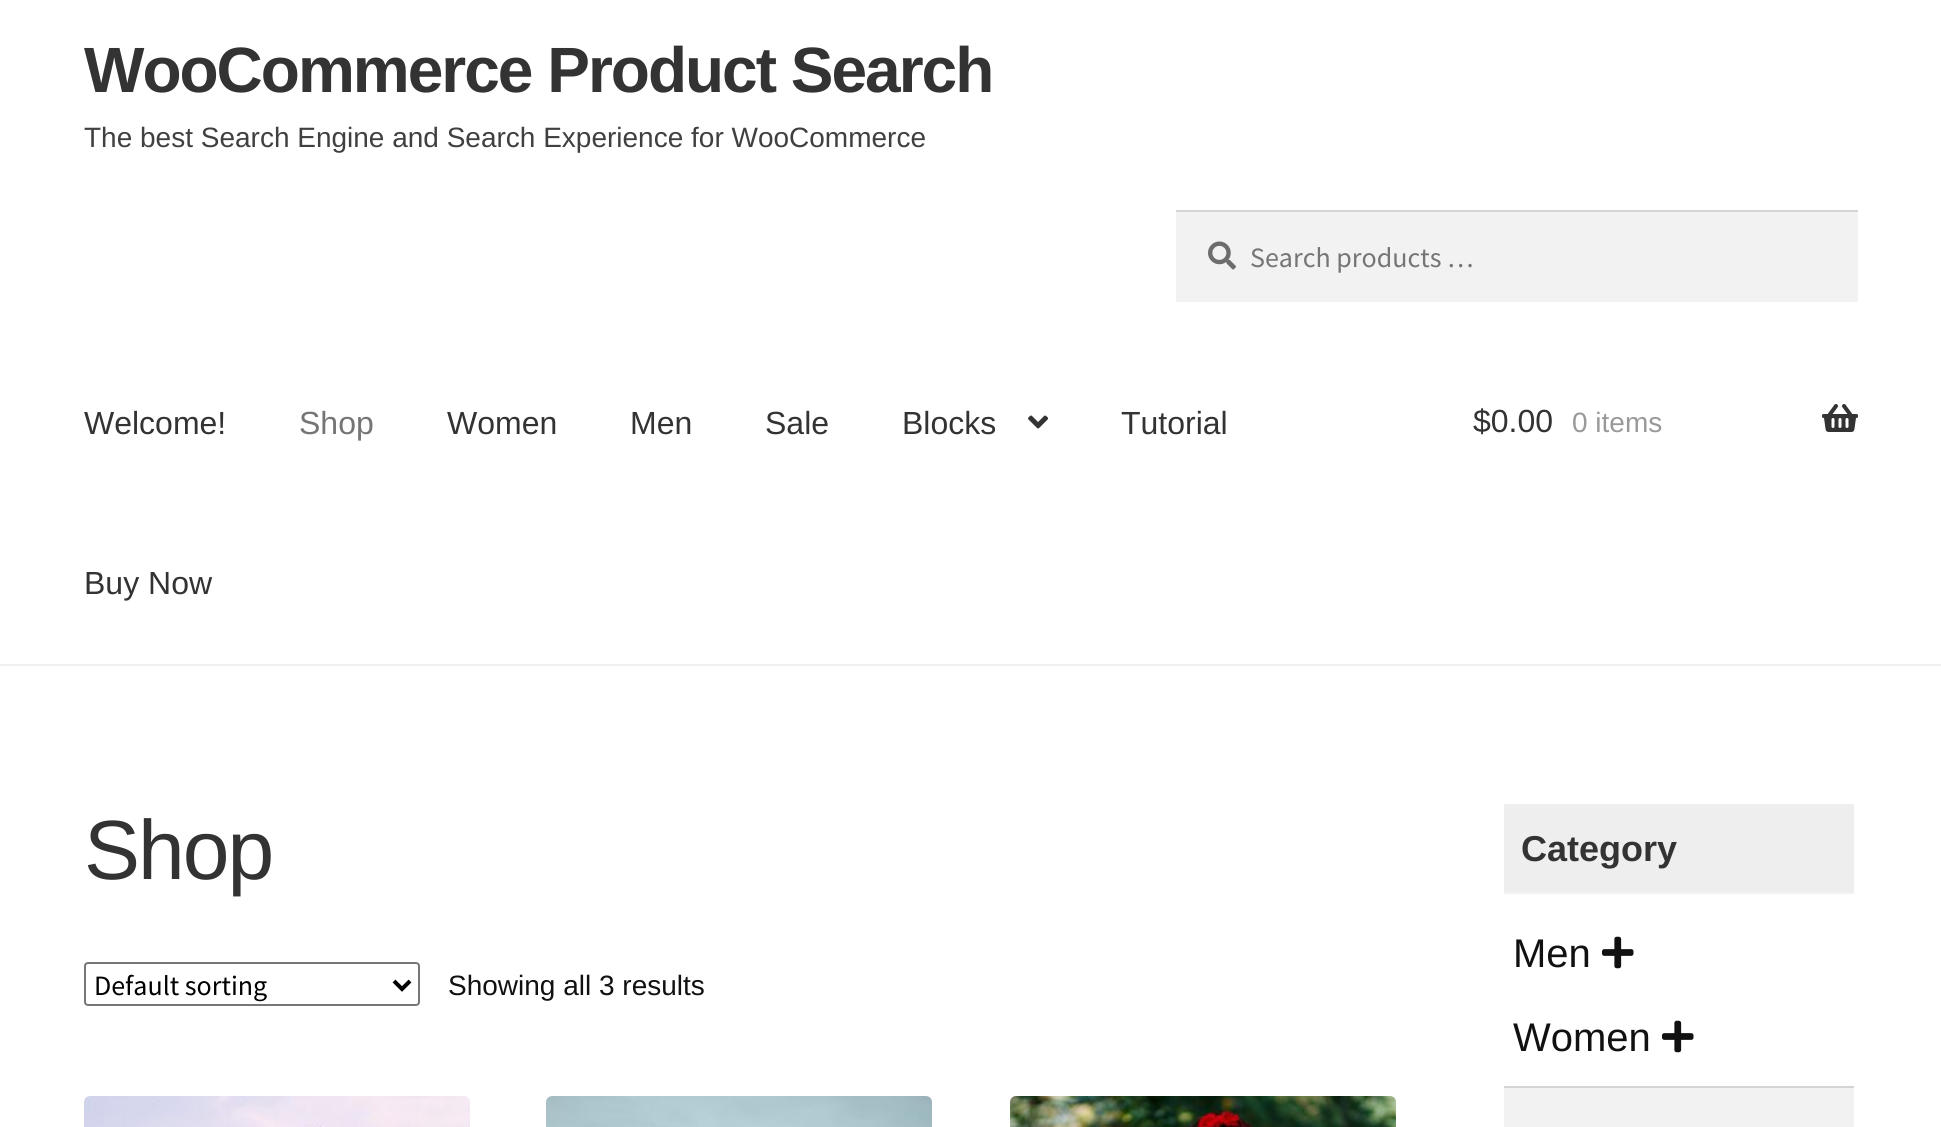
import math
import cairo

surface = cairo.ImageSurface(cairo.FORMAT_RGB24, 1941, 1127)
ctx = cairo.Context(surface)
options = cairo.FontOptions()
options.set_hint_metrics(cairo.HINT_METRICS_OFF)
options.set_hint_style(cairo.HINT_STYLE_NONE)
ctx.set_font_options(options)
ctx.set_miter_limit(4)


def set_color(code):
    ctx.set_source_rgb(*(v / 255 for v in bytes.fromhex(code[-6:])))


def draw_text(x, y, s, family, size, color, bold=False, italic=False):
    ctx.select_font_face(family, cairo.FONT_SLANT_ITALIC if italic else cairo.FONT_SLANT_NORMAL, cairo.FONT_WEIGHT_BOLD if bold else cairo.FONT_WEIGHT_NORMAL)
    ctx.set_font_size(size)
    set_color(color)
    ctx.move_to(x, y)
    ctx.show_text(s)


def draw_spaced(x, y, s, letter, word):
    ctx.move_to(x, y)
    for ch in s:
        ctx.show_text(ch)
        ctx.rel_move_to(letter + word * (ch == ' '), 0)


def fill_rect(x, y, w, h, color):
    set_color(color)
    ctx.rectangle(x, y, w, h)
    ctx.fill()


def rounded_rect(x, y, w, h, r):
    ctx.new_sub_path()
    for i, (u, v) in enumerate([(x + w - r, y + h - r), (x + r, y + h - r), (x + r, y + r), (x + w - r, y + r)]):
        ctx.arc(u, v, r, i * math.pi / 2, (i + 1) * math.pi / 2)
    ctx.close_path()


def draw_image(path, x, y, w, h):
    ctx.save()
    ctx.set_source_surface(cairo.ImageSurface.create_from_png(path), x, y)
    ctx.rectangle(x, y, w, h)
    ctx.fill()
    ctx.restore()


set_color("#ffffff")
ctx.paint()
fill_rect(0, 664, 1941, 2, "#f0f0f0")
ctx.select_font_face("Liberation Sans", cairo.FONT_SLANT_NORMAL, cairo.FONT_WEIGHT_BOLD)
ctx.set_font_size(64)
set_color("#333333")
draw_spaced(84, 92, "WooCommerce Product Search", -2, 0)
draw_text(84, 147, "The best Search Engine and Search Experience for WooCommerce", "Liberation Sans", 28, "#404040")
fill_rect(1176, 212, 682, 90, "#f2f2f2")
draw_image("assets/img1.png", 1208, 241, 28, 29)
fill_rect(1176, 210, 682, 2, "#d4d4d4")
draw_text(1250, 267, "Search products …", "Source Sans Pro", 28, "#757575")
draw_text(84, 434, "Welcome!", "Liberation Sans", 32, "#333333")
draw_text(299, 434, "Shop", "Liberation Sans", 32, "#757575")
draw_text(447, 434, "Women", "Liberation Sans", 32, "#333333")
draw_text(630, 434, "Men", "Liberation Sans", 32, "#333333")
draw_text(765, 434, "Sale", "Liberation Sans", 32, "#333333")
draw_text(902, 434, "Blocks", "Liberation Sans", 32, "#333333")
draw_image("assets/img2.png", 1028, 415, 20, 14)
draw_text(1121, 434, "Tutorial", "Liberation Sans", 32, "#333333")
draw_text(84, 594, "Buy Now", "Liberation Sans", 32, "#333333")
draw_text(1473, 432, "$0.00", "Liberation Sans", 32, "#333333")
draw_text(1572, 432, "0 items", "Liberation Sans", 28, "#999999")
draw_image("assets/img3.png", 1822, 404, 36, 28)
ctx.set_font_size(84)
set_color("#333333")
draw_spaced(84, 879, "Shop", -2, 0)
rounded_rect(85, 963, 334, 42, 3)
set_color("#767676")
ctx.stroke()
ctx.new_path()
ctx.move_to(394, 981)
ctx.line_to(402, 989)
ctx.line_to(410, 981)
set_color("#000000")
ctx.set_line_width(4)
ctx.stroke()
draw_text(94, 995, "Default sorting", "Source Sans Pro", 28, "#000000")
draw_text(448, 995, "Showing all 3 results", "Liberation Sans", 28, "#111111")
draw_image("assets/img4.png", 84, 1096, 386, 31)
draw_image("assets/img5.png", 546, 1096, 386, 31)
draw_image("assets/img6.png", 1010, 1096, 386, 31)
fill_rect(1504, 804, 350, 88, "#eeeeee")
fill_rect(1504, 892, 350, 2, "#f2f2f2")
draw_text(1521, 861, "Category", "Liberation Sans", 36, "#333333", bold=True)
draw_text(1513, 967, "Men", "Liberation Sans", 40, "#111111")
draw_image("assets/img7.png", 1602, 936, 32, 33)
draw_text(1513, 1051, "Women", "Liberation Sans", 40, "#111111")
draw_image("assets/img7.png", 1662, 1020, 32, 33)
fill_rect(1504, 1088, 350, 39, "#f2f2f2")
fill_rect(1504, 1086, 350, 2, "#d4d4d4")
surface.write_to_png("output.png")
